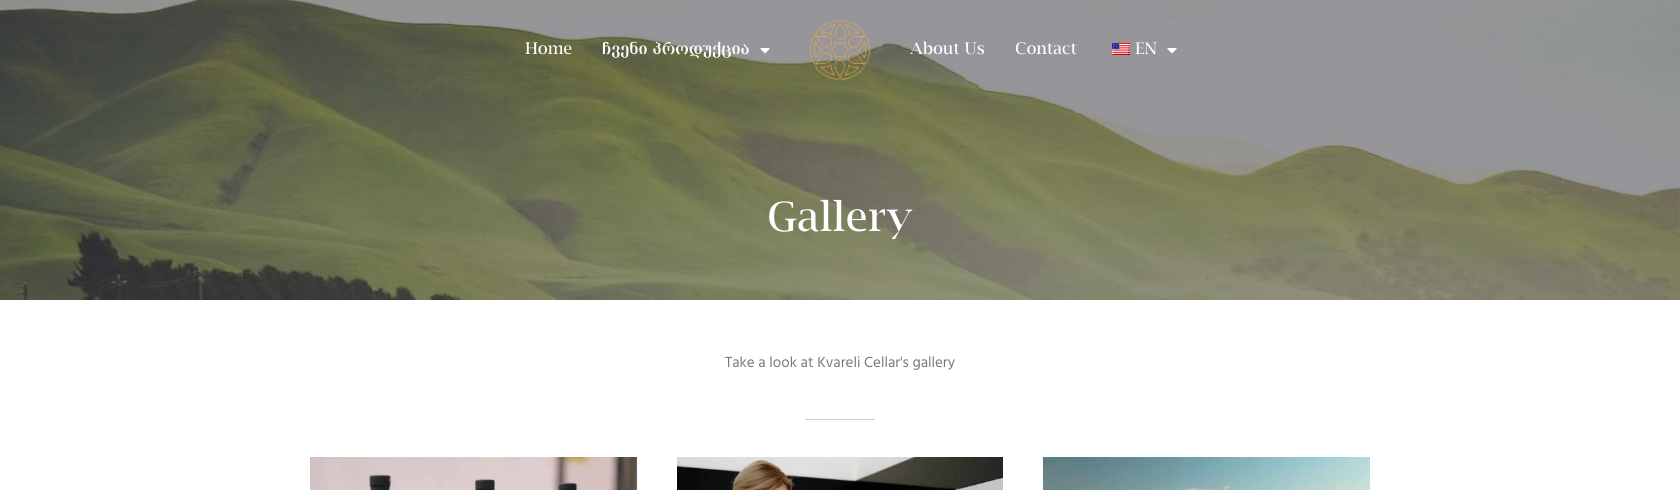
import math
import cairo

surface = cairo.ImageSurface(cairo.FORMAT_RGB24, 1680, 490)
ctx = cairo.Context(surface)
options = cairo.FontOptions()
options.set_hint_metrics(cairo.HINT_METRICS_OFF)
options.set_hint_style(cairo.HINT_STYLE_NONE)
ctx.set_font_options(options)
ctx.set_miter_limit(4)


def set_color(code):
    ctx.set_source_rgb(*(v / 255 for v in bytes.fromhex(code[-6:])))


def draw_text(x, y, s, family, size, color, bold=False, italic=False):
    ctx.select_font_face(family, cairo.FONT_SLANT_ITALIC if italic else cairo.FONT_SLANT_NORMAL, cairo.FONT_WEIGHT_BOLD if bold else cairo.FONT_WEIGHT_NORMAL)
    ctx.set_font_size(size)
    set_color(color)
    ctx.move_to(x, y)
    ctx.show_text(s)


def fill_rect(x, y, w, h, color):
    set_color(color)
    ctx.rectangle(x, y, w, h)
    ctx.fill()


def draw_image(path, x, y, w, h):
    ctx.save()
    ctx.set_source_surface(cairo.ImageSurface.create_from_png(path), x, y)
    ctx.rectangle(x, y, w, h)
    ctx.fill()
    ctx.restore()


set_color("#ffffff")
ctx.paint()
draw_image("assets/img5.png", 0, 0, 1680, 300)
draw_text(525, 54, "Home", "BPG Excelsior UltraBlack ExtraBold", 16, "#ffffff")
draw_text(602, 54, "ჩვენი პროდუქცია", "BPG Excelsior UltraBlack ExtraBold", 16, "#ffffff")
draw_image("assets/img1.png", 760, 48, 10, 6)
draw_image("assets/img2.png", 810, 20, 60, 60)
draw_text(910, 54, "About Us", "BPG Excelsior UltraBlack ExtraBold", 16, "#ffffff")
draw_text(1015, 54, "Contact", "BPG Excelsior UltraBlack ExtraBold", 16, "#ffffff")
draw_image("assets/img3.png", 1112, 43, 18, 12)
draw_text(1135, 54, "EN", "BPG Excelsior UltraBlack ExtraBold", 16, "#ffffff")
draw_image("assets/img4.png", 1167, 48, 10, 6)
draw_text(767, 231, "Gallery", "BPG Excelsior UltraBlack ExtraBold", 40, "#ffffff")
draw_text(725, 367, "Take a look at Kvareli Cellar's gallery", "Hind", 15, "#727982")
fill_rect(805, 419, 70, 1, "#cacfd4")
draw_image("assets/img6.png", 310, 457, 327, 33)
draw_image("assets/img7.png", 677, 457, 326, 33)
draw_image("assets/img8.png", 1043, 457, 327, 33)
surface.write_to_png("output.png")
